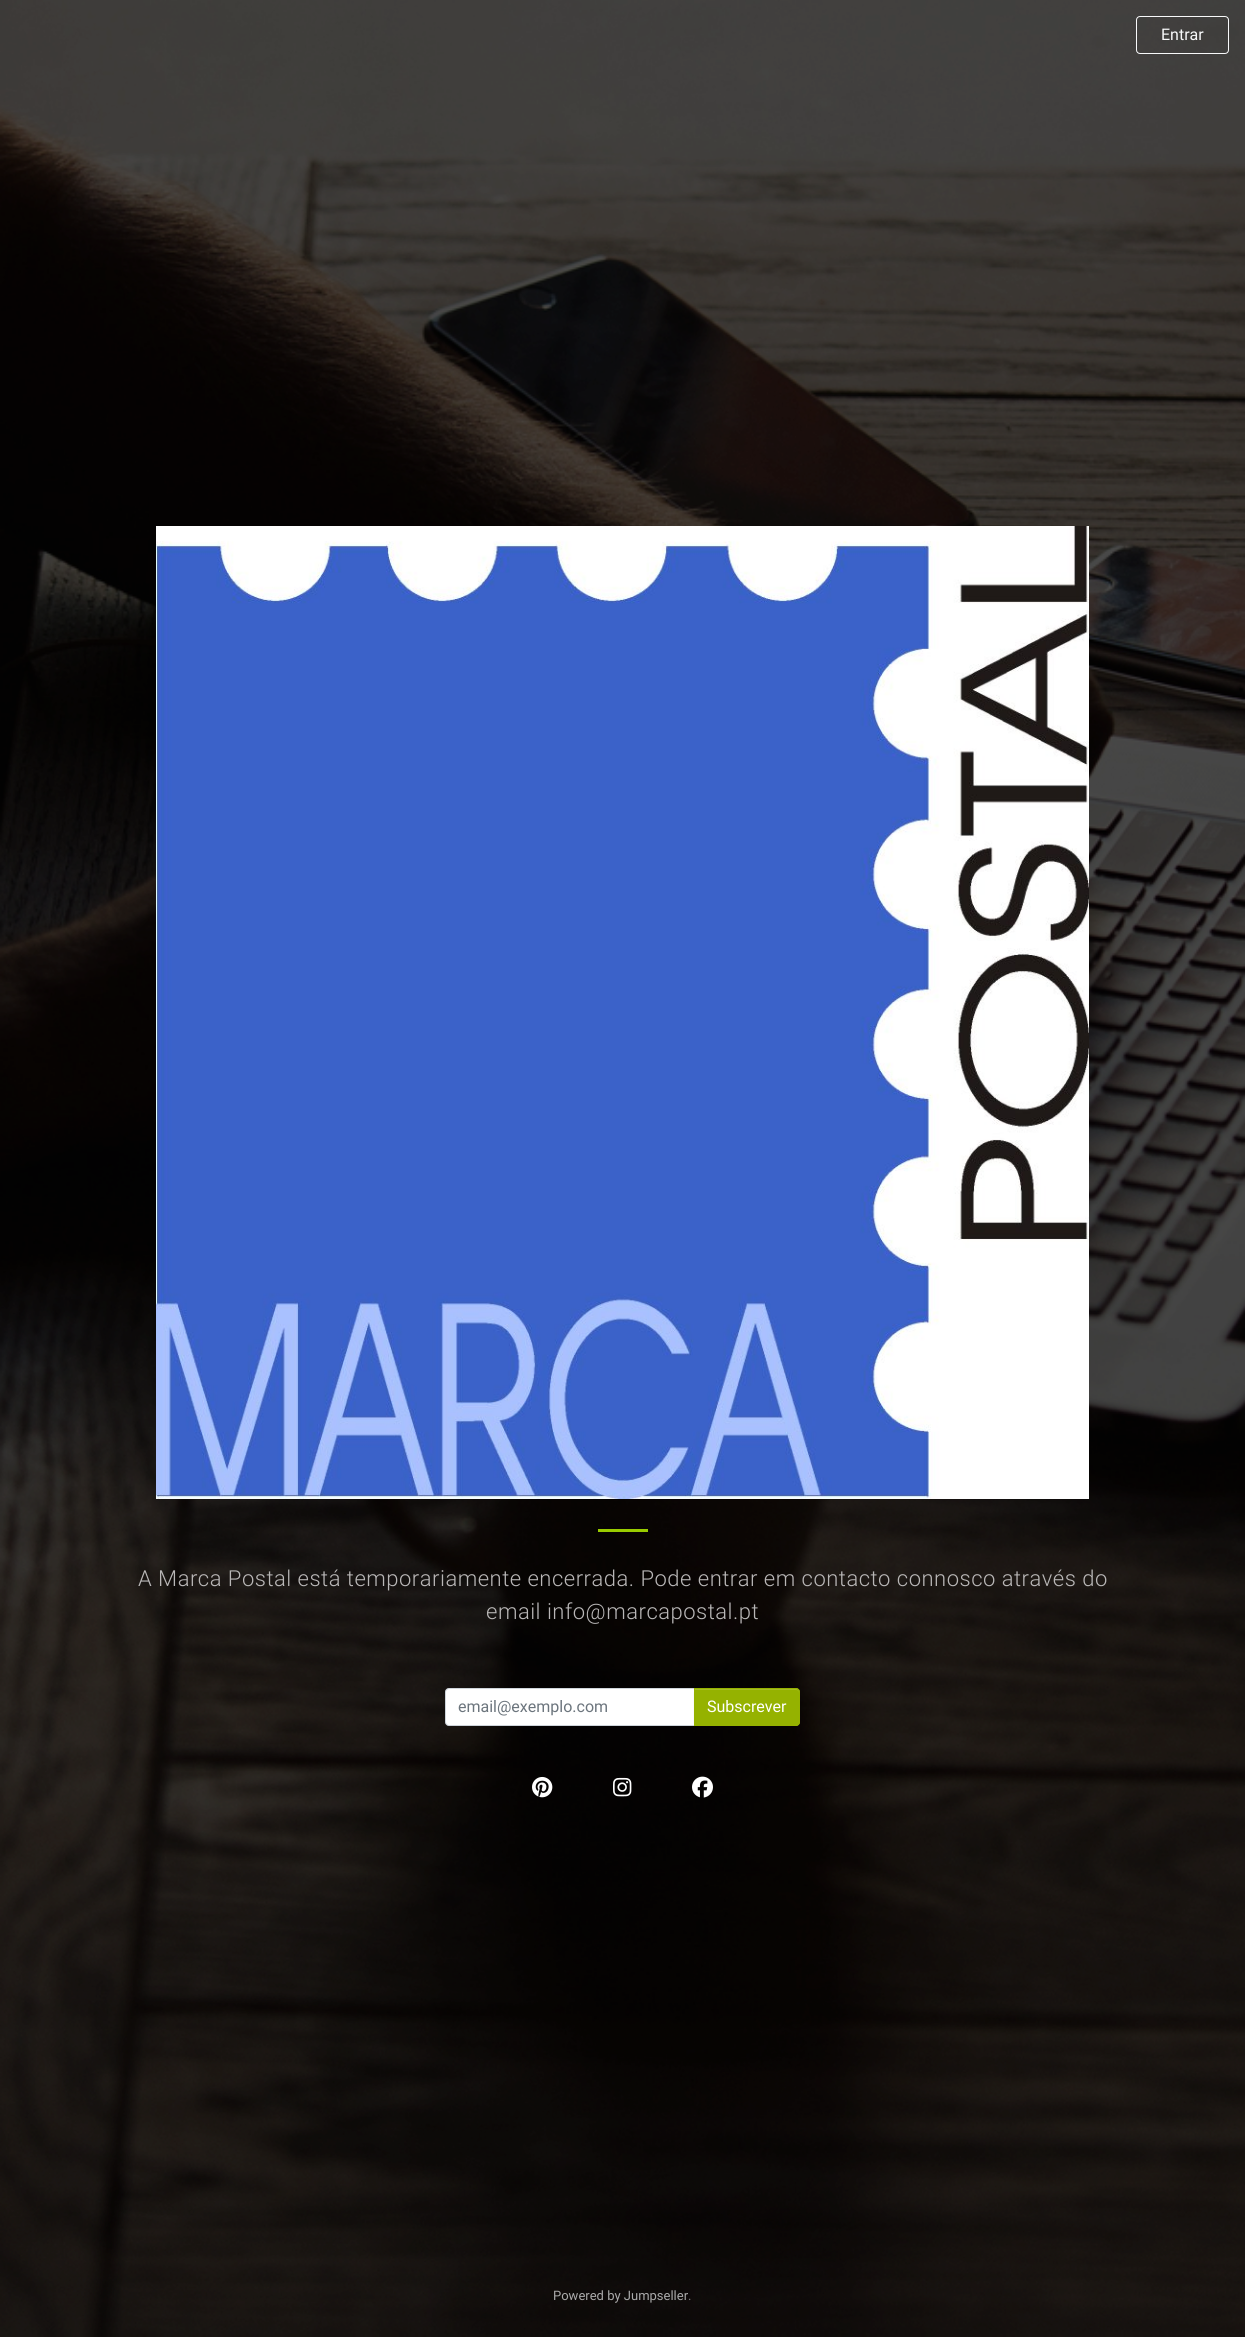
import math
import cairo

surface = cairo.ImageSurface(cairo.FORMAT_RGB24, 1245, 2337)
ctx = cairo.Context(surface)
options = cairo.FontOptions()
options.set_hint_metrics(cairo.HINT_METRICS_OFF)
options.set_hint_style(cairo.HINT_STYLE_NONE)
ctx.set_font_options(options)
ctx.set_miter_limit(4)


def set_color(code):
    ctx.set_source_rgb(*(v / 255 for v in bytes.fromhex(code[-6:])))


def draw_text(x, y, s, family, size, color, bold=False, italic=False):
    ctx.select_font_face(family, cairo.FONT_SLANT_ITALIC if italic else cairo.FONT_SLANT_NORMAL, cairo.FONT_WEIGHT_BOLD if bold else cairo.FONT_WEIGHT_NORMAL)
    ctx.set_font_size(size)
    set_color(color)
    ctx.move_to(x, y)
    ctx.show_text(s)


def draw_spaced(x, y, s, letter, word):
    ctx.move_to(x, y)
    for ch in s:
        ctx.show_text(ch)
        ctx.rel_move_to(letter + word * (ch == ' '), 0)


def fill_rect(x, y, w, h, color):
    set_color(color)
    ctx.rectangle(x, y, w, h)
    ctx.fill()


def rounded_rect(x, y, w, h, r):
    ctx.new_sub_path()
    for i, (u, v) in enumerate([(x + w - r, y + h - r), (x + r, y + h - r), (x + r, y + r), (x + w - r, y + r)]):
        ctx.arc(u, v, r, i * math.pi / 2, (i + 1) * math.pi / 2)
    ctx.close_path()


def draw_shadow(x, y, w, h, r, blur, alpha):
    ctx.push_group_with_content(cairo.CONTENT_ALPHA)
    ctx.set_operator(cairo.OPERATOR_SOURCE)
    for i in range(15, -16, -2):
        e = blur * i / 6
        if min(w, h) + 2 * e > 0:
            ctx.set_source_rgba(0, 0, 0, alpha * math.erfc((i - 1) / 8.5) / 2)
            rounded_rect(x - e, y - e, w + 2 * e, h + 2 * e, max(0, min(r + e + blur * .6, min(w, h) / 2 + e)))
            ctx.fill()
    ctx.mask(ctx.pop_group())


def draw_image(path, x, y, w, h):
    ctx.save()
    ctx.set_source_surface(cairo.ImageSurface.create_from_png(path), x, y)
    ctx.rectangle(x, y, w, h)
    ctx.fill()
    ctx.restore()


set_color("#ffffff")
ctx.paint()
draw_image("assets/img1.png", 0, 0, 1245, 2337)
rounded_rect(1136.5, 16.5, 92, 37, 3.5)
set_color("#f8f9fa")
ctx.set_line_width(1)
ctx.stroke()
draw_text(1161, 40, "Entrar", "Roboto", 16, "#f8f9fa")
draw_image("assets/img2.png", 156, 526, 933, 973)
fill_rect(598, 1529, 50, 3, "#99cc00")
ctx.select_font_face("Roboto Light")
ctx.set_font_size(22)
set_color("#b9b7b7")
draw_spaced(138, 1586, "A Marca Postal está temporariamente encerrada. Pode entrar em contacto connosco através do", 0.5, 0)
draw_spaced(486, 1619, "email info@marcapostal.pt", 0.5, 0)
set_color("#ffffff")
ctx.new_path()
ctx.move_to(449, 1688.5)
ctx.line_to(694.5, 1688.5)
ctx.line_to(694.5, 1725.5)
ctx.line_to(449, 1725.5)
ctx.curve_to(447, 1725.5, 445.5, 1724, 445.5, 1722)
ctx.line_to(445.5, 1692)
ctx.curve_to(445.5, 1690, 447, 1688.5, 449, 1688.5)
ctx.close_path()
ctx.fill_preserve()
set_color("#ced4da")
ctx.stroke()
draw_text(458, 1712, "email@exemplo.com", "Roboto", 16, "#6c757d")
set_color("#000000")
draw_shadow(694, 1689, 106, 38, 4, 0.5, 0.07)
set_color("#95b200")
ctx.new_path()
ctx.move_to(694, 1688)
ctx.line_to(796, 1688)
ctx.curve_to(798, 1688, 800, 1690, 800, 1692)
ctx.line_to(800, 1722)
ctx.curve_to(800, 1724, 798, 1726, 796, 1726)
ctx.line_to(694, 1726)
ctx.close_path()
ctx.fill()
set_color("#a5be26")
ctx.new_path()
ctx.move_to(695, 1690)
ctx.line_to(796, 1690)
ctx.curve_to(798, 1690, 799, 1691, 799, 1693)
ctx.line_to(799, 1692)
ctx.curve_to(799, 1690, 798, 1689, 796, 1689)
ctx.line_to(695, 1689)
ctx.close_path()
ctx.fill()
ctx.new_path()
ctx.move_to(694.5, 1688.5)
ctx.line_to(796, 1688.5)
ctx.curve_to(798, 1688.5, 799.5, 1690, 799.5, 1692)
ctx.line_to(799.5, 1722)
ctx.curve_to(799.5, 1724, 798, 1725.5, 796, 1725.5)
ctx.line_to(694.5, 1725.5)
ctx.close_path()
set_color("#95b200")
ctx.stroke()
draw_text(707, 1712, "Subscrever", "Roboto", 16, "#ffffff")
draw_image("assets/img3.png", 532, 1776, 21, 22)
draw_image("assets/img4.png", 613, 1777, 19, 20)
draw_image("assets/img5.png", 692, 1776, 21, 22)
draw_text(553, 2300, "Powered by Jumpseller", "Roboto", 13, "#aaaaaa")
draw_text(688, 2300, ".", "Roboto", 13, "#777777")
surface.write_to_png("output.png")
